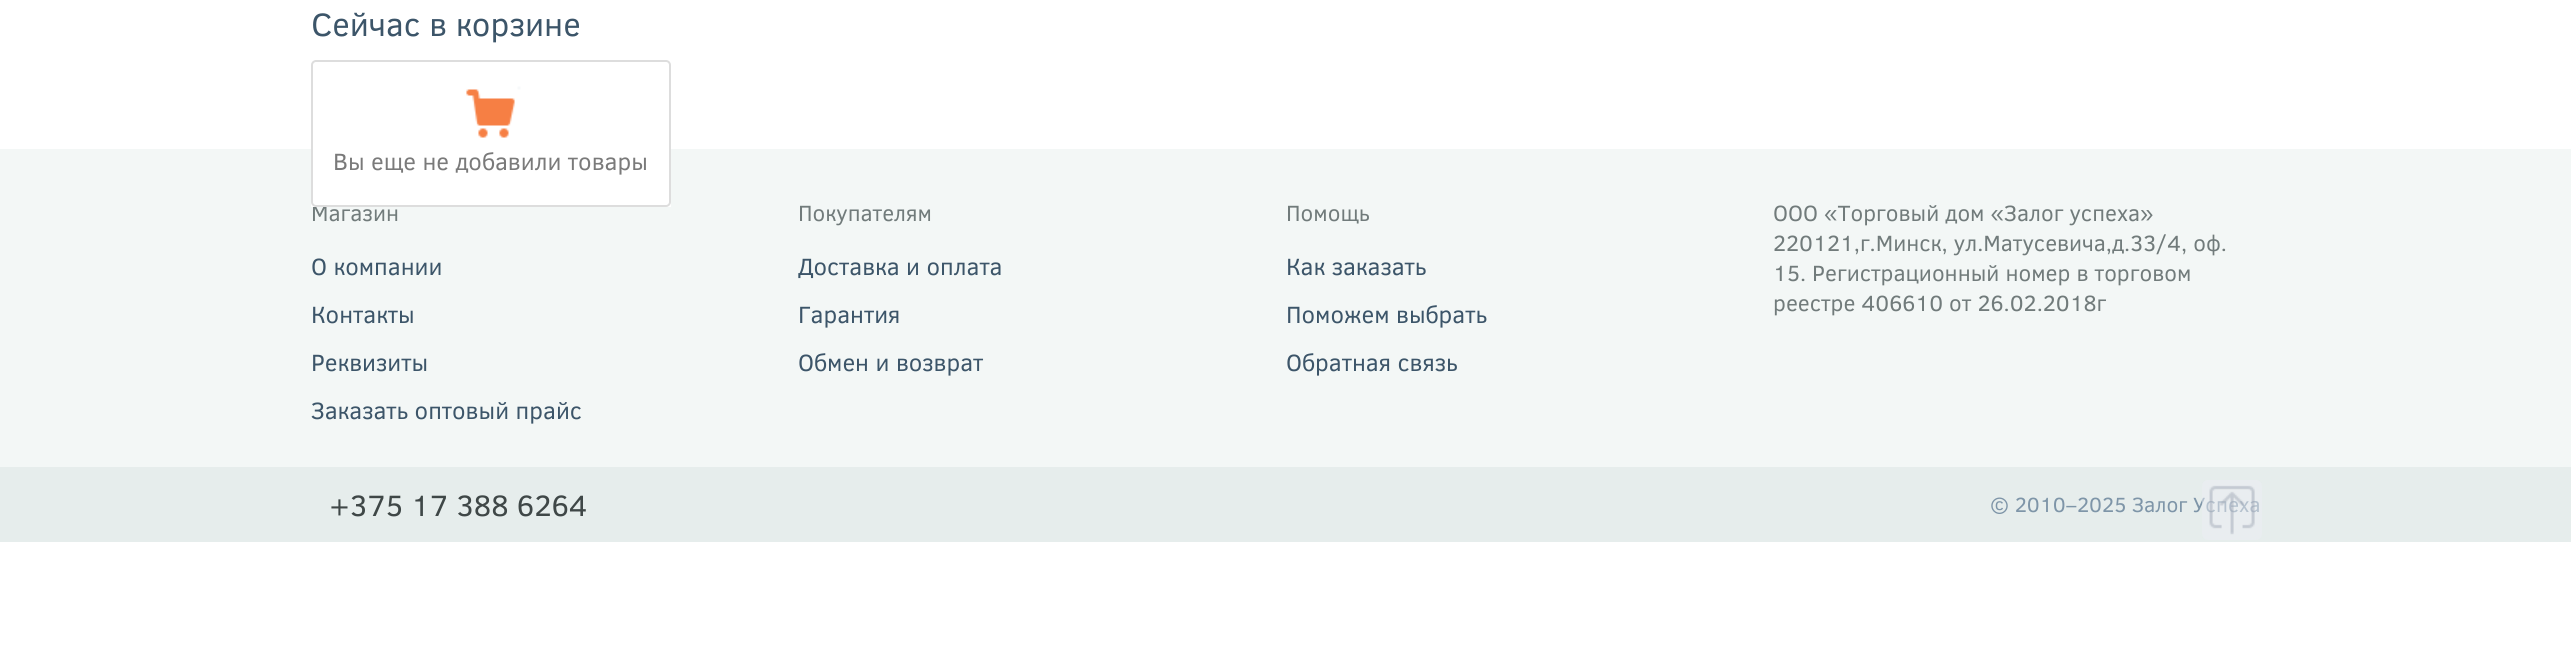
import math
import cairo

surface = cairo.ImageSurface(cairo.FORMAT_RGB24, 2571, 645)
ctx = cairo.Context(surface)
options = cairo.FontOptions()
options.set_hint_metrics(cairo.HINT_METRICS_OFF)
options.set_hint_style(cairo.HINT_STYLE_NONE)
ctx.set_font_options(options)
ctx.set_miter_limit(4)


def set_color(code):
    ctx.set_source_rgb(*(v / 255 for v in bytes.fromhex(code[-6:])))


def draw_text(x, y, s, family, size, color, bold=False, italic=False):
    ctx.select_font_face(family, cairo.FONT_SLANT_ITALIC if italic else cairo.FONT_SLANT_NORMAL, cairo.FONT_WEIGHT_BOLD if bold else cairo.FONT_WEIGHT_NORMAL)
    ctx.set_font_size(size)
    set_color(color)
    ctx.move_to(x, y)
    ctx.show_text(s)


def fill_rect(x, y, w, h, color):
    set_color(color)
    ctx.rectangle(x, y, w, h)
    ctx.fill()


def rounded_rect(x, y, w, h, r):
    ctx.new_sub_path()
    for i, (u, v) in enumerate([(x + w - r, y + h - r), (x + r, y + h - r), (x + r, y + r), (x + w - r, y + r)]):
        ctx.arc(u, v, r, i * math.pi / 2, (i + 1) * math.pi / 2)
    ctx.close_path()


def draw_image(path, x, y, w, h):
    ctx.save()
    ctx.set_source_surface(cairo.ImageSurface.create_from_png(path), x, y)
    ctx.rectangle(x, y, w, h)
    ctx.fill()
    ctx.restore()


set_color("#ffffff")
ctx.paint()
fill_rect(0, 149, 2571, 318, "#f3f7f6")
draw_text(311, 221, "Магазин", "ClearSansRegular", 22.5, "#717b7b")
fill_rect(311, 149, 360, 58, "#ffffff")
draw_text(311, 36, "Сейчас в корзине", "ClearSansRegular", 33, "#3c5569")
rounded_rect(312, 61, 358, 145, 4)
set_color("#dddddd")
ctx.stroke()
draw_image("assets/img1.png", 466, 86, 55, 52)
draw_text(333, 170, "Вы еще не добавили товары", "ClearSansRegular", 24, "#7a7a7a")
fill_rect(0, 467, 2571, 75, "#e6edec")
draw_text(311, 275, "О компании", "ClearSansRegular", 24, "#3c5569")
draw_text(311, 323, "Контакты", "ClearSansRegular", 24, "#3c5569")
draw_text(311, 371, "Реквизиты", "ClearSansRegular", 24, "#3c5569")
draw_text(311, 419, "Заказать оптовый прайс", "ClearSansRegular", 24, "#3c5569")
draw_text(798, 221, "Покупателям", "ClearSansRegular", 22.5, "#717b7b")
draw_text(798, 275, "Доставка и оплата", "ClearSansRegular", 24, "#3c5569")
draw_text(798, 323, "Гарантия", "ClearSansRegular", 24, "#3c5569")
draw_text(798, 371, "Обмен и возврат", "ClearSansRegular", 24, "#3c5569")
draw_text(1286, 221, "Помощь", "ClearSansRegular", 22.5, "#717b7b")
draw_text(1286, 275, "Как заказать", "ClearSansRegular", 24, "#3c5569")
draw_text(1286, 323, "Поможем выбрать", "ClearSansRegular", 24, "#3c5569")
draw_text(1286, 371, "Обратная связь", "ClearSansRegular", 24, "#3c5569")
draw_text(1773, 221, "ООО «Торговый дом «Залог успеха»", "ClearSansRegular", 22.5, "#717b7b")
draw_text(1773, 251, "220121,г.Минск, ул.Матусевича,д.33/4, оф.", "ClearSansRegular", 22.5, "#717b7b")
draw_text(1773, 281, "15. Регистрационный номер в торговом", "ClearSansRegular", 22.5, "#717b7b")
draw_text(1773, 311, "реестре 406610 от 26.02.2018г", "ClearSansRegular", 22.5, "#717b7b")
draw_text(1990, 512, "© 2010–2025 Залог Успеха", "ClearSansRegular", 21, "#7e95a8")
ctx.set_source_rgba(0.925, 0.937, 0.957, 0.5)
rounded_rect(2202, 480, 60, 60, 6)
ctx.fill()
draw_image("assets/img2.png", 2209, 485, 46, 50)
draw_text(329, 516, "+375 17 388 6264", "ClearSansRegular", 30, "#3f4747")
surface.write_to_png("output.png")
